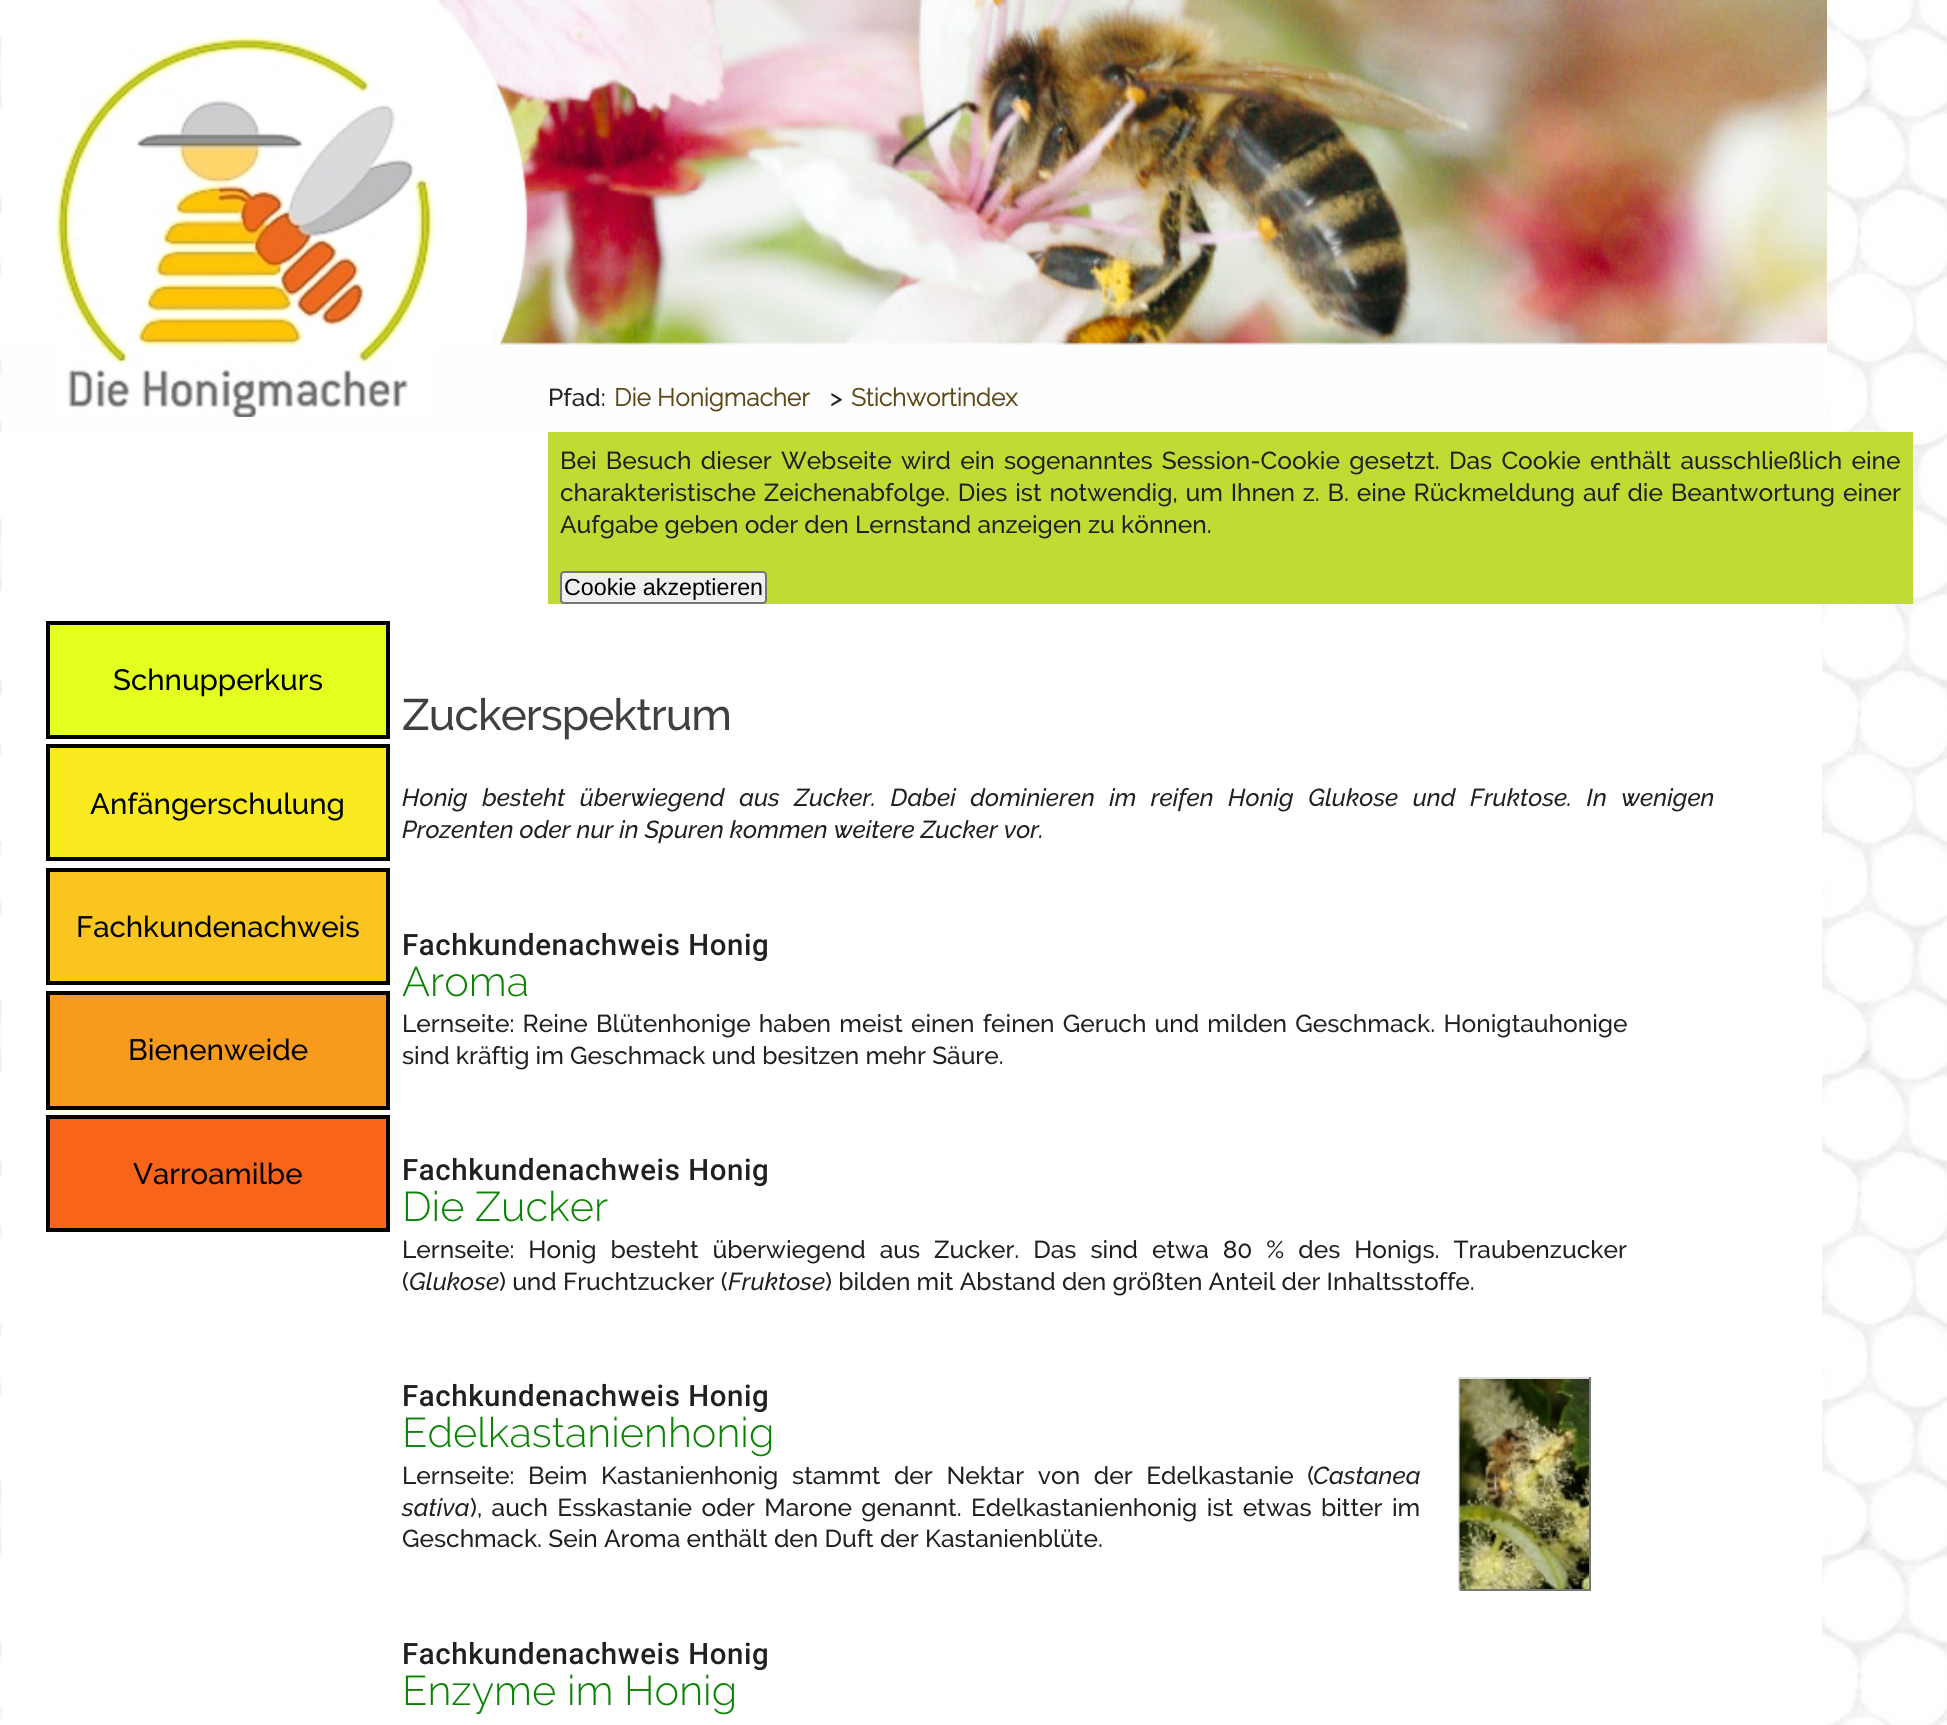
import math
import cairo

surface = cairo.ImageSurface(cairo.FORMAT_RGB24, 1947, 1725)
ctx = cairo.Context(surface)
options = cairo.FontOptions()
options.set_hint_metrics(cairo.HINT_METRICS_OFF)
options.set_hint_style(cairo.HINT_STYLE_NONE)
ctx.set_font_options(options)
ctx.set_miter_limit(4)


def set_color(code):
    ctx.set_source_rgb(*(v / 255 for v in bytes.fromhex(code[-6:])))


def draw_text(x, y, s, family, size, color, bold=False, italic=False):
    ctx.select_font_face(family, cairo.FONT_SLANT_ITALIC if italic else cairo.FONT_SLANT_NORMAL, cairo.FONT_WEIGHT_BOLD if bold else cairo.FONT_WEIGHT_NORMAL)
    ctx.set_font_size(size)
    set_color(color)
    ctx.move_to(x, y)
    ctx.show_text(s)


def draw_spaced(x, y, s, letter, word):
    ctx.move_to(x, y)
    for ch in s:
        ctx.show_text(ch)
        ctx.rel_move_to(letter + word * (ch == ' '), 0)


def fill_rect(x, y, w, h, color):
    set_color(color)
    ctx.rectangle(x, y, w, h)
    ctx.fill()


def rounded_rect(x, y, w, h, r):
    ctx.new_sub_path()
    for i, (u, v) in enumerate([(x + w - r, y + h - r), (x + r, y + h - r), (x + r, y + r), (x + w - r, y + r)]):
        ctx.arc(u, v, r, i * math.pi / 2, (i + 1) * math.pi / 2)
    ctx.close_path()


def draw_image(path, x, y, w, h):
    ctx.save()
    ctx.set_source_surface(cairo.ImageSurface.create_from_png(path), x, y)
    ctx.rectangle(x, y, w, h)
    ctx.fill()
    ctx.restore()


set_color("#ffffff")
ctx.paint()
draw_image("assets/img1.png", 0, 0, 1947, 1725)
fill_rect(2, 344, 1825, 85, "#fefefe")
draw_image("assets/img2.png", 1, 0, 1826, 345)
draw_image("assets/img3.png", 54, 36, 381, 381)
fill_rect(2, 429, 1820, 1296, "#ffffff")
draw_text(548, 406, "Pfad:", "Raleway Medium", 24.5, "#202020")
draw_text(614, 406, "Die Honigmacher", "Raleway", 24.5, "#5c4816", bold=True)
draw_text(830, 406, ">", "Raleway Medium", 24.5, "#202020")
draw_text(851, 406, "Stichwortindex", "Raleway", 24.5, "#5c4816", bold=True)
fill_rect(548, 432, 1365, 172, "#c1da34")
ctx.select_font_face("Raleway Medium")
set_color("#202020")
draw_spaced(560, 469, "Bei Besuch dieser Webseite wird ein sogenanntes Session-Cookie gesetzt. Das Cookie enthält ausschließlich eine", 0, 3)
draw_spaced(560, 501, "charakteristische Zeichenabfolge. Dies ist notwendig, um Ihnen z. B. eine Rückmeldung auf die Beantwortung einer", 0, 1.6)
draw_text(560, 533, "Aufgabe geben oder den Lernstand anzeigen zu können.", "Raleway Medium", 24.5, "#202020")
set_color("#efefef")
rounded_rect(561, 572, 205, 31, 3)
ctx.fill_preserve()
set_color("#767676")
ctx.stroke()
draw_text(564, 595, "Cookie akzeptieren", "Liberation Sans", 23.25, "#000000")
set_color("#e2ff1f")
ctx.rectangle(48, 623, 340, 114)
ctx.fill_preserve()
set_color("#000000")
ctx.set_line_width(4)
ctx.stroke()
draw_text(113, 690, "Schnupperkurs", "Raleway Medium", 29.4, "#000000")
set_color("#faeb20")
ctx.rectangle(48, 746, 340, 113)
ctx.fill_preserve()
set_color("#000000")
ctx.stroke()
draw_text(90, 814, "Anfängerschulung", "Raleway Medium", 29.4, "#000000")
set_color("#f9c51e")
ctx.rectangle(48, 870, 340, 113)
ctx.fill_preserve()
set_color("#000000")
ctx.stroke()
draw_text(76, 937, "Fachkundenachweis", "Raleway Medium", 29.4, "#000000")
set_color("#f89b1c")
ctx.rectangle(48, 993, 340, 115)
ctx.fill_preserve()
set_color("#000000")
ctx.stroke()
draw_text(128, 1060, "Bienenweide", "Raleway Medium", 29.4, "#000000")
set_color("#f7641a")
ctx.rectangle(48, 1117, 340, 113)
ctx.fill_preserve()
set_color("#000000")
ctx.stroke()
draw_text(133, 1184, "Varroamilbe", "Raleway Medium", 29.4, "#000000")
ctx.set_font_size(44)
set_color("#404040")
draw_spaced(402, 730, "Zuckerspektrum", -0.9, 0)
ctx.select_font_face("Raleway Medium", cairo.FONT_SLANT_ITALIC)
ctx.set_font_size(24.5)
set_color("#202020")
draw_spaced(402, 806, "Honig besteht überwiegend aus Zucker. Dabei dominieren im reifen Honig Glukose und Fruktose. In wenigen", 0, 8.4)
draw_text(402, 838, "Prozenten oder nur in Spuren kommen weitere Zucker vor.", "Raleway Medium", 24.5, "#202020", italic=True)
ctx.select_font_face("Roboto Medium")
ctx.set_font_size(29.4)
draw_spaced(402, 955, "Fachkundenachweis Honig", 0.6, 0)
draw_text(402, 996, "Aroma", "Raleway Light", 41.5, "#0a8303")
ctx.select_font_face("Raleway Medium")
ctx.set_font_size(24.5)
set_color("#202020")
draw_spaced(402, 1032, "Lernseite: Reine Blütenhonige haben meist einen feinen Geruch und milden Geschmack. Honigtauhonige", 0, 2)
draw_text(402, 1064, "sind kräftig im Geschmack und besitzen mehr Säure.", "Raleway Medium", 24.5, "#202020")
ctx.select_font_face("Roboto Medium")
ctx.set_font_size(29.4)
draw_spaced(402, 1180, "Fachkundenachweis Honig", 0.6, 0)
draw_text(402, 1221, "Die Zucker", "Raleway Light", 41.5, "#0a8303")
ctx.select_font_face("Raleway Medium")
ctx.set_font_size(24.5)
set_color("#202020")
draw_spaced(402, 1258, "Lernseite: Honig besteht überwiegend aus Zucker. Das sind etwa 80 % des Honigs. Traubenzucker", 0, 7.75)
draw_text(402, 1290, "(", "Raleway Medium", 24.5, "#202020")
draw_text(409, 1290, "Glukose", "Raleway Medium", 24.5, "#202020", italic=True)
draw_text(499, 1290, ") und Fruchtzucker (", "Raleway Medium", 24.5, "#202020")
draw_text(728, 1290, "Fruktose", "Raleway Medium", 24.5, "#202020", italic=True)
draw_text(825, 1290, ") bilden mit Abstand den größten Anteil der Inhaltsstoffe.", "Raleway Medium", 24.5, "#202020")
ctx.select_font_face("Roboto Medium")
ctx.set_font_size(29.4)
draw_spaced(402, 1406, "Fachkundenachweis Honig", 0.6, 0)
fill_rect(1458, 1377, 133, 2, "#dddddd")
fill_rect(1589, 1377, 2, 214, "#777777")
fill_rect(1458, 1589, 133, 2, "#777777")
fill_rect(1458, 1377, 2, 214, "#dddddd")
draw_image("assets/img4.png", 1459, 1379, 130, 210)
draw_text(402, 1447, "Edelkastanienhonig", "Raleway Light", 41.5, "#0a8303")
ctx.select_font_face("Raleway Medium")
ctx.set_font_size(24.5)
set_color("#202020")
draw_spaced(402, 1484, "Lernseite: Beim Kastanienhonig stammt der Nektar von der Edelkastanie (", 0, 7.5)
draw_text(1313, 1484, "Castanea", "Raleway Medium", 24.5, "#202020", italic=True)
draw_text(402, 1516, "sativa", "Raleway Medium", 24.5, "#202020", italic=True)
ctx.select_font_face("Raleway Medium")
draw_spaced(470, 1516, "), auch Esskastanie oder Marone genannt. Edelkastanienhonig ist etwas bitter im", 0, 3.25)
draw_text(402, 1547, "Geschmack. Sein Aroma enthält den Duft der Kastanienblüte.", "Raleway Medium", 24.5, "#202020")
ctx.select_font_face("Roboto Medium")
ctx.set_font_size(29.4)
draw_spaced(402, 1664, "Fachkundenachweis Honig", 0.6, 0)
draw_text(402, 1705, "Enzyme im Honig", "Raleway Light", 41.5, "#0a8303")
surface.write_to_png("output.png")
